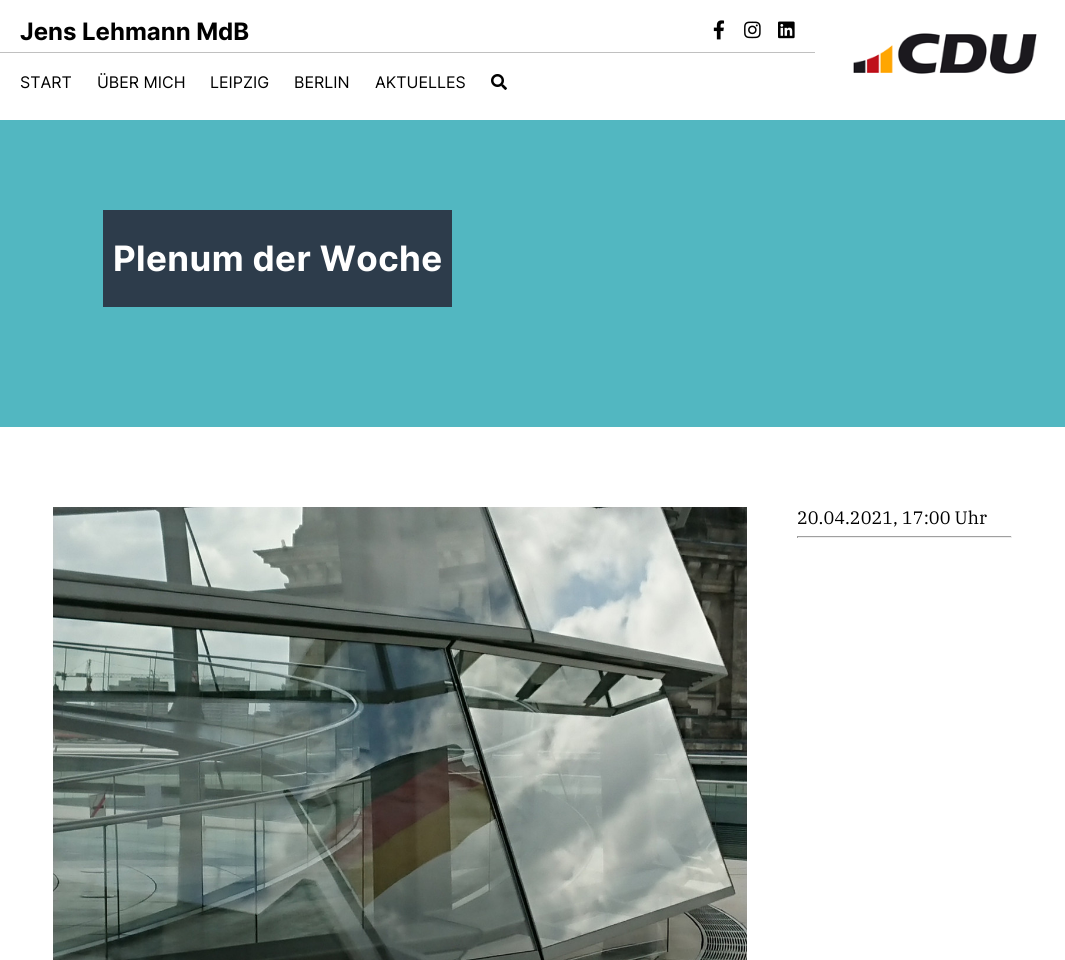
import math
import cairo

surface = cairo.ImageSurface(cairo.FORMAT_RGB24, 1065, 960)
ctx = cairo.Context(surface)
options = cairo.FontOptions()
options.set_hint_metrics(cairo.HINT_METRICS_OFF)
options.set_hint_style(cairo.HINT_STYLE_NONE)
ctx.set_font_options(options)
ctx.set_miter_limit(4)


def set_color(code):
    ctx.set_source_rgb(*(v / 255 for v in bytes.fromhex(code[-6:])))


def draw_text(x, y, s, family, size, color, bold=False, italic=False):
    ctx.select_font_face(family, cairo.FONT_SLANT_ITALIC if italic else cairo.FONT_SLANT_NORMAL, cairo.FONT_WEIGHT_BOLD if bold else cairo.FONT_WEIGHT_NORMAL)
    ctx.set_font_size(size)
    set_color(color)
    ctx.move_to(x, y)
    ctx.show_text(s)


def draw_spaced(x, y, s, letter, word):
    ctx.move_to(x, y)
    for ch in s:
        ctx.show_text(ch)
        ctx.rel_move_to(letter + word * (ch == ' '), 0)


def fill_rect(x, y, w, h, color):
    set_color(color)
    ctx.rectangle(x, y, w, h)
    ctx.fill()


def draw_image(path, x, y, w, h):
    ctx.save()
    ctx.set_source_surface(cairo.ImageSurface.create_from_png(path), x, y)
    ctx.rectangle(x, y, w, h)
    ctx.fill()
    ctx.restore()


set_color("#ffffff")
ctx.paint()
fill_rect(0, 52, 815, 1, "#c0c0c0")
draw_text(20, 40, "Jens Lehmann MdB", "Inter", 24, "#000000", bold=True)
draw_image("assets/img1.png", 713, 20, 12, 20)
draw_image("assets/img2.png", 744, 21, 17, 18)
draw_image("assets/img3.png", 778, 21, 17, 18)
draw_image("assets/img4.png", 853, 33, 184, 41)
draw_text(20, 88, "START", "Inter", 16, "#000000")
draw_text(97, 88, "ÜBER MICH", "Inter", 16, "#000000")
draw_text(210, 88, "LEIPZIG", "Inter", 16, "#000000")
draw_text(294, 88, "BERLIN", "Inter", 16, "#000000")
draw_text(375, 88, "AKTUELLES", "Inter", 16, "#000000")
draw_image("assets/img5.png", 491, 74, 16, 16)
fill_rect(0, 120, 1065, 307, "#52b7c1")
fill_rect(103, 210, 349, 97, "#2d3c4b")
ctx.select_font_face("Inter", cairo.FONT_SLANT_NORMAL, cairo.FONT_WEIGHT_BOLD)
ctx.set_font_size(35)
set_color("#ffffff")
draw_spaced(113, 271, "Plenum der Woche", 0.4, 0)
draw_image("assets/img6.png", 53, 507, 694, 453)
draw_text(797, 524, "20.04.2021, 17:00 Uhr", "IBM Plex Serif", 18, "#000000")
fill_rect(797, 536, 215, 1, "#9f9f9f")
fill_rect(1011, 536, 1, 2, "#eeeeee")
fill_rect(797, 537, 215, 1, "#eeeeee")
fill_rect(797, 536, 1, 2, "#9f9f9f")
surface.write_to_png("output.png")
